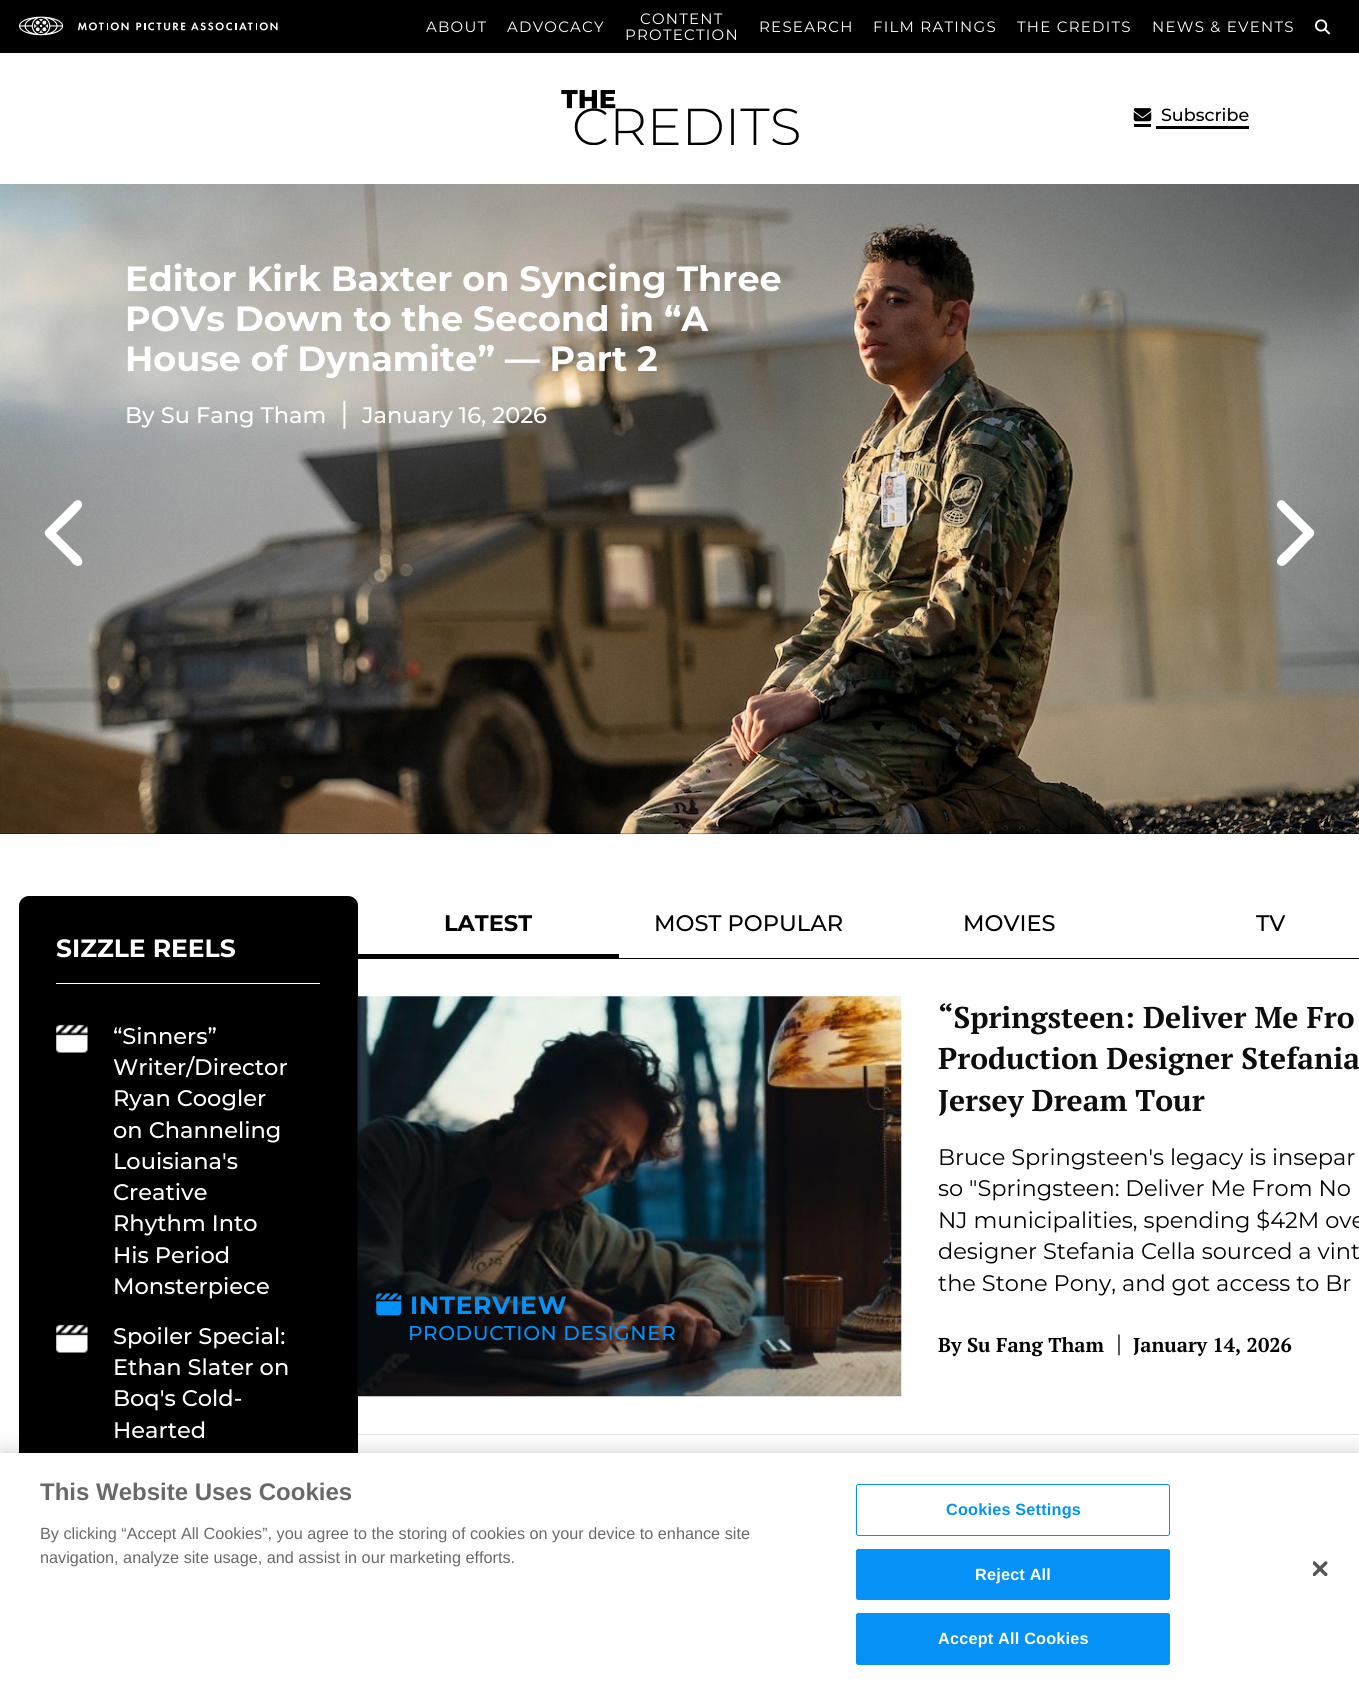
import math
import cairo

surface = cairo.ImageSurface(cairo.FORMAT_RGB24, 1359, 1689)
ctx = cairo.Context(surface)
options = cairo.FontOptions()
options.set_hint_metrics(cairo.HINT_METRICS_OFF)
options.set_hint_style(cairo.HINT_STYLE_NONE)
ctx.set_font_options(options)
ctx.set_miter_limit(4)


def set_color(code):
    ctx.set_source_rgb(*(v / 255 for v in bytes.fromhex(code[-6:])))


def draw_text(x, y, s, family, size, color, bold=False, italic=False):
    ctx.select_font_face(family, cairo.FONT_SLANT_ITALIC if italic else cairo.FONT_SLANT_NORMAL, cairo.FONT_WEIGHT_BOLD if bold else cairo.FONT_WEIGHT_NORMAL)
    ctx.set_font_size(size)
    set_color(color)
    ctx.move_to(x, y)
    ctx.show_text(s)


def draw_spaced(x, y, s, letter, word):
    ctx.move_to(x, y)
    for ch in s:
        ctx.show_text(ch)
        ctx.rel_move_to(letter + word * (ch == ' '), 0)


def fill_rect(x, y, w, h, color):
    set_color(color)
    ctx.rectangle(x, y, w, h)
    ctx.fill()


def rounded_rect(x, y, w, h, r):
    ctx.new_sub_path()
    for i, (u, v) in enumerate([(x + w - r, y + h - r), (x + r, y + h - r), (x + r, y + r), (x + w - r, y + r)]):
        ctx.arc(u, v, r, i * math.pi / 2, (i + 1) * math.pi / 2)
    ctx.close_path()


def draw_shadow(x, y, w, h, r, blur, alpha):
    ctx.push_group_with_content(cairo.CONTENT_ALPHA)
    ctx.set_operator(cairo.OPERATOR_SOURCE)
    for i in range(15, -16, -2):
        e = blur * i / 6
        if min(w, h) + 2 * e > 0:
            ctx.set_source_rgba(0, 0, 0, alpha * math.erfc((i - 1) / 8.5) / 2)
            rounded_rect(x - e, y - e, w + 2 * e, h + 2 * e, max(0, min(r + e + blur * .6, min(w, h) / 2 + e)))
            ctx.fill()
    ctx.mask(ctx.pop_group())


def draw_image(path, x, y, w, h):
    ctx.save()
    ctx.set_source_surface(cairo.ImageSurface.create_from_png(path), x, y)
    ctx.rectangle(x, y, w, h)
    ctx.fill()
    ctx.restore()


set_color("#ffffff")
ctx.paint()
fill_rect(0, 0, 1359, 53, "#000000")
draw_image("assets/img1.png", 19, 16, 259, 20)
ctx.select_font_face("Montserrat")
ctx.set_font_size(15)
set_color("#ffffff")
draw_spaced(426, 32, "ABOUT", 1.25, 0)
draw_spaced(507, 32, "ADVOCACY", 1.25, 0)
draw_spaced(640, 24, "CONTENT", 1.25, 0)
draw_spaced(625, 40, "PROTECTION", 1.25, 0)
draw_spaced(759, 32, "RESEARCH", 1.25, 0)
draw_spaced(873, 32, "FILM RATINGS", 1.25, 0)
draw_spaced(1017, 32, "THE CREDITS", 1.25, 0)
draw_spaced(1152, 32, "NEWS & EVENTS", 1.25, 0)
draw_image("assets/img2.png", 1315, 19, 15, 16)
draw_image("assets/img3.png", 561, 90, 238, 55)
fill_rect(1134, 124, 17, 3, "#000000")
fill_rect(1156, 126, 93, 3, "#000000")
draw_image("assets/img4.png", 1133, 108, 19, 14)
draw_text(1161, 121, "Subscribe", "Montserrat Medium", 17.5, "#000000")
fill_rect(0, 833, 1359, 1, "#000000")
draw_image("assets/img5.png", 0, 184, 1359, 650)
draw_text(125, 291, "Editor Kirk Baxter on Syncing Three", "Montserrat", 35, "#ffffff", bold=True)
draw_text(125, 331, "POVs Down to the Second in “A", "Montserrat", 35, "#ffffff", bold=True)
draw_text(125, 371, "House of Dynamite” — Part 2", "Montserrat", 35, "#ffffff", bold=True)
draw_text(125, 423, "By Su Fang Tham", "Montserrat Medium", 22.5, "#ffffff")
draw_text(340, 423, "|", "Montserrat", 30, "#ffffff")
draw_text(362, 423, "January 16, 2026", "Montserrat Medium", 22.5, "#ffffff")
ctx.new_path()
ctx.move_to(46, 530)
ctx.curve_to(42, 534, 48, 538, 51, 541)
ctx.line_to(70, 560)
ctx.curve_to(72, 563, 76, 568, 81, 565)
ctx.curve_to(82, 564, 83, 562, 82, 561)
ctx.curve_to(82, 557, 75, 552, 73, 550)
ctx.line_to(56, 533)
ctx.curve_to(60, 529, 82, 509, 82, 506)
ctx.curve_to(83, 501, 78, 498, 74, 502)
ctx.close_path()
ctx.fill()
ctx.new_path()
ctx.move_to(1313, 530)
ctx.curve_to(1317, 534, 1311, 538, 1308, 541)
ctx.line_to(1290, 560)
ctx.curve_to(1287, 563, 1283, 568, 1279, 565)
ctx.curve_to(1277, 564, 1277, 562, 1277, 561)
ctx.curve_to(1277, 557, 1284, 552, 1286, 550)
ctx.line_to(1303, 533)
ctx.curve_to(1299, 529, 1278, 509, 1277, 506)
ctx.curve_to(1276, 501, 1282, 498, 1285, 502)
ctx.close_path()
ctx.fill()
set_color("#9b9b9b")
draw_shadow(24, 901, 339, 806, 10, 2.5, 1)
set_color("#000000")
ctx.new_path()
ctx.move_to(29, 896)
ctx.line_to(348, 896)
ctx.curve_to(353.5, 896, 358, 900.5, 358, 906)
ctx.line_to(358, 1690)
ctx.line_to(19, 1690)
ctx.line_to(19, 906)
ctx.curve_to(19, 900.5, 23.5, 896, 29, 896)
ctx.close_path()
ctx.fill()
fill_rect(56, 983, 264, 1, "#ffffff")
draw_text(56, 957, "SIZZLE REELS", "Montserrat", 25, "#ffffff", bold=True)
draw_image("assets/img6.png", 56, 1024, 32, 29)
draw_text(113, 1044, "“Sinners”", "Montserrat Medium", 22.5, "#ffffff")
draw_text(113, 1075, "Writer/Director", "Montserrat Medium", 22.5, "#ffffff")
draw_text(113, 1106, "Ryan Coogler", "Montserrat Medium", 22.5, "#ffffff")
draw_text(113, 1138, "on Channeling", "Montserrat Medium", 22.5, "#ffffff")
draw_text(113, 1169, "Louisiana's", "Montserrat Medium", 22.5, "#ffffff")
draw_text(113, 1200, "Creative", "Montserrat Medium", 22.5, "#ffffff")
draw_text(113, 1231, "Rhythm Into", "Montserrat Medium", 22.5, "#ffffff")
draw_text(113, 1263, "His Period", "Montserrat Medium", 22.5, "#ffffff")
draw_text(113, 1294, "Monsterpiece", "Montserrat Medium", 22.5, "#ffffff")
draw_image("assets/img7.png", 56, 1324, 32, 29)
draw_text(113, 1344, "Spoiler Special:", "Montserrat Medium", 22.5, "#ffffff")
draw_text(113, 1375, "Ethan Slater on", "Montserrat Medium", 22.5, "#ffffff")
draw_text(113, 1406, "Boq's Cold-", "Montserrat Medium", 22.5, "#ffffff")
draw_text(113, 1438, "Hearted", "Montserrat Medium", 22.5, "#ffffff")
fill_rect(358, 897, 10, 556, "#ffffff")
fill_rect(358, 954, 261, 5, "#000000")
draw_text(444, 931, "LATEST", "Montserrat", 22.5, "#000000", bold=True)
fill_rect(619, 958, 740, 1, "#000000")
draw_text(654, 931, "MOST POPULAR", "Montserrat Medium", 22.5, "#000000")
draw_text(963, 931, "MOVIES", "Montserrat Medium", 22.5, "#000000")
draw_text(1256, 931, "TV", "Montserrat Medium", 22.5, "#000000")
fill_rect(358, 1434, 1001, 1, "#e3e3e3")
draw_image("assets/img8.png", 357, 996, 545, 401)
draw_image("assets/img9.png", 376, 1293, 26, 23)
ctx.select_font_face("Montserrat", cairo.FONT_SLANT_NORMAL, cairo.FONT_WEIGHT_BOLD)
ctx.set_font_size(25)
set_color("#0591f5")
draw_spaced(410, 1314, "INTERVIEW", 0.6, 0)
ctx.select_font_face("Montserrat Medium")
ctx.set_font_size(20)
draw_spaced(408, 1340, "PRODUCTION DESIGNER", 0.6, 0)
draw_text(938, 1028, "“Springsteen: Deliver Me Fro", "PT Serif", 30, "#0d0d0e", bold=True)
draw_text(938, 1069, "Production Designer Stefania", "PT Serif", 30, "#0d0d0e", bold=True)
draw_text(938, 1111, "Jersey Dream Tour", "PT Serif", 30, "#0d0d0e", bold=True)
draw_text(938, 1165, "Bruce Springsteen's legacy is insepar", "Montserrat", 22.5, "#000000")
draw_text(938, 1196, "so \"Springsteen: Deliver Me From No", "Montserrat", 22.5, "#000000")
draw_text(938, 1228, "NJ municipalities, spending $42M ove", "Montserrat", 22.5, "#000000")
draw_text(938, 1259, "designer Stefania Cella sourced a vint", "Montserrat", 22.5, "#000000")
draw_text(938, 1291, "the Stone Pony, and got access to Br", "Montserrat", 22.5, "#000000")
draw_text(938, 1352, "By Su Fang Tham", "PT Serif", 20, "#000000", bold=True)
draw_text(1116, 1352, "|", "PT Serif", 25, "#000000")
draw_text(1133, 1352, "January 14, 2026", "PT Serif", 20, "#000000", bold=True)
set_color("#000000")
draw_shadow(0, 1453, 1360, 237, 0, 11, 0.2)
fill_rect(0, 1453, 1359, 236, "#ffffff")
draw_text(40, 1500, "This Website Uses Cookies", "Liberation Sans", 24, "#696969", bold=True)
draw_text(40, 1539, "By clicking “Accept All Cookies”, you agree to the storing of cookies on your device to enhance site", "Liberation Sans", 16.25, "#696969")
draw_text(40, 1563, "navigation, analyze site usage, and assist in our marketing efforts.", "Liberation Sans", 16.25, "#696969")
rounded_rect(856.5, 1484.5, 313, 51, 2)
set_color("#0591f5")
ctx.set_line_width(1)
ctx.stroke()
ctx.select_font_face("Liberation Sans", cairo.FONT_SLANT_NORMAL, cairo.FONT_WEIGHT_BOLD)
draw_spaced(946, 1515, "Cookies Settings", 0.2, 0)
rounded_rect(856.5, 1549.5, 313, 50, 2)
ctx.fill_preserve()
ctx.stroke()
set_color("#ffffff")
draw_spaced(975, 1580, "Reject All", 0.2, 0)
set_color("#0591f5")
rounded_rect(856.5, 1613.5, 313, 51, 2)
ctx.fill_preserve()
ctx.stroke()
set_color("#ffffff")
draw_spaced(938, 1644, "Accept All Cookies", 0.2, 0)
draw_image("assets/img10.png", 1313, 1561, 15, 15)
surface.write_to_png("output.png")
